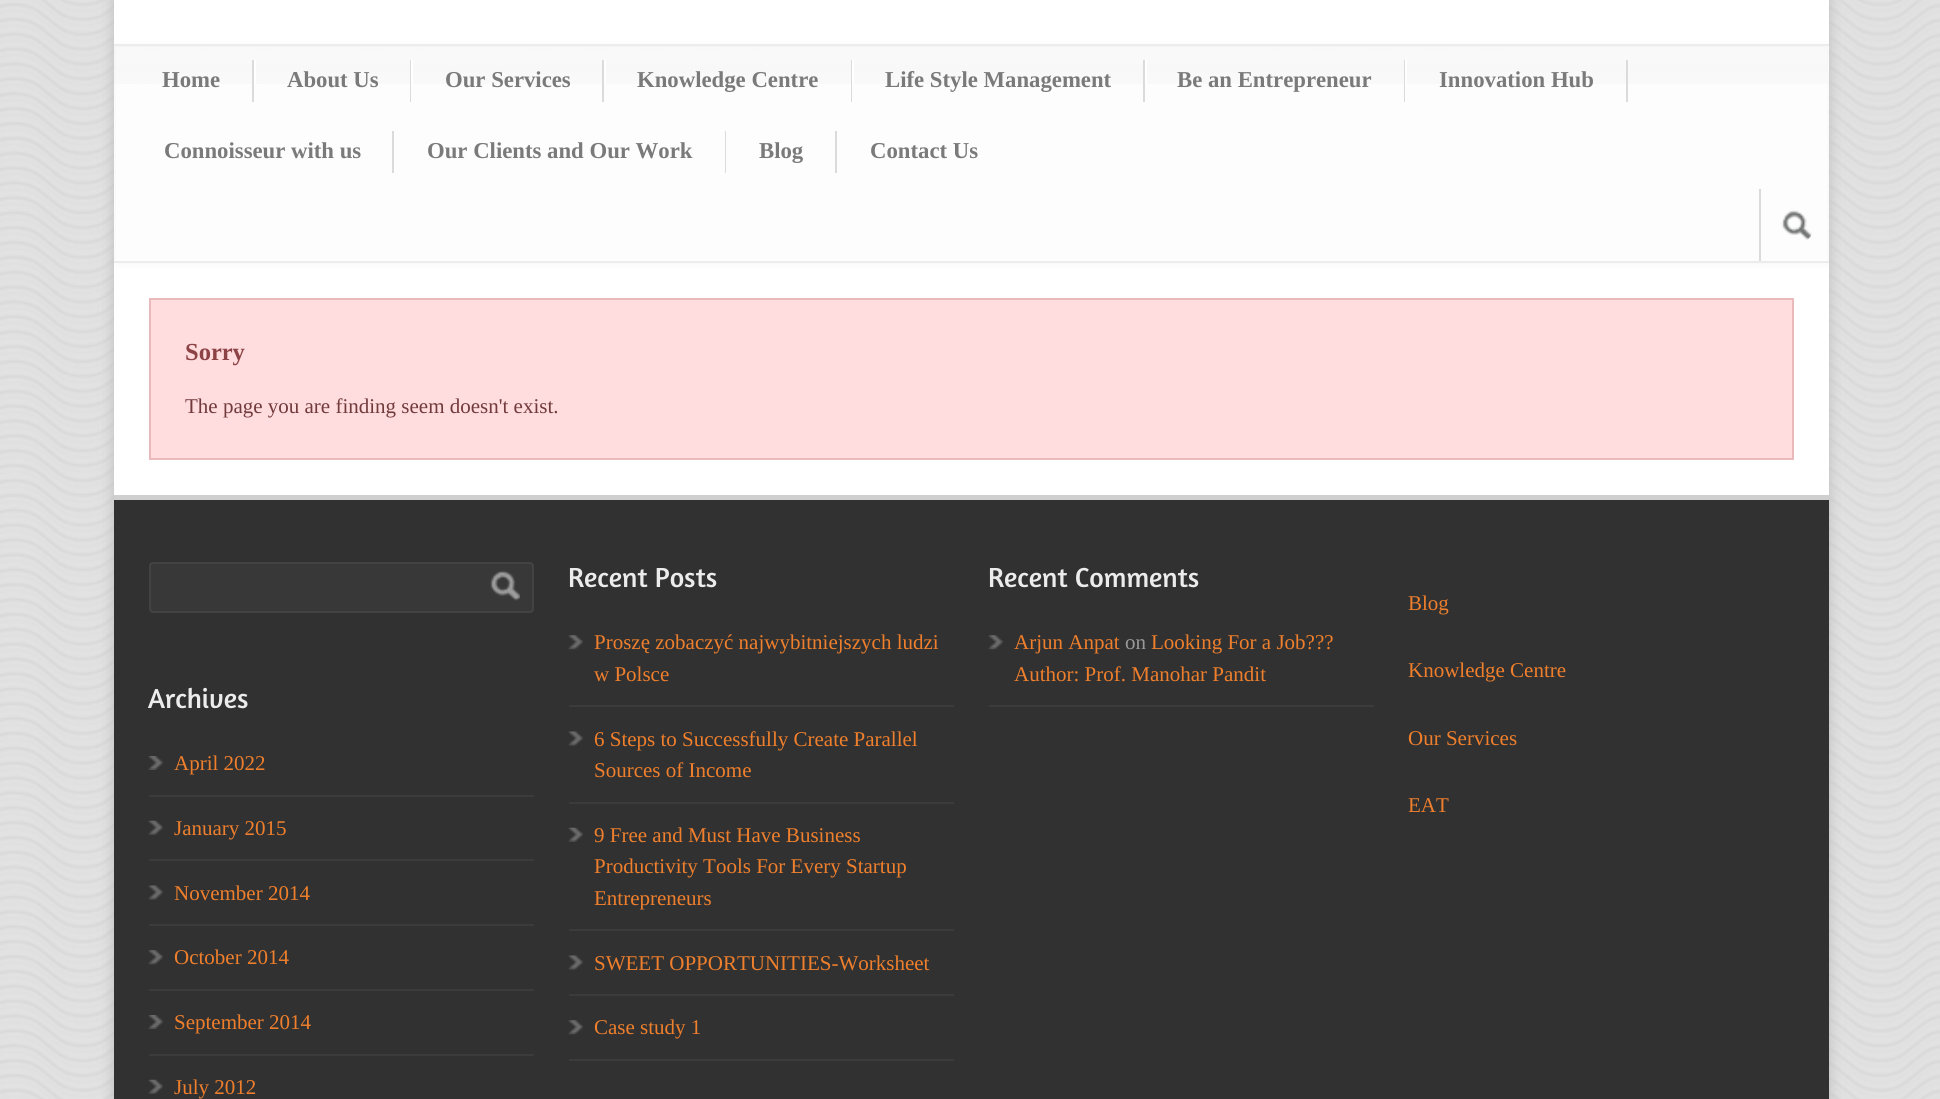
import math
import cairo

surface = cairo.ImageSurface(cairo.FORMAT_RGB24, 1940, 1099)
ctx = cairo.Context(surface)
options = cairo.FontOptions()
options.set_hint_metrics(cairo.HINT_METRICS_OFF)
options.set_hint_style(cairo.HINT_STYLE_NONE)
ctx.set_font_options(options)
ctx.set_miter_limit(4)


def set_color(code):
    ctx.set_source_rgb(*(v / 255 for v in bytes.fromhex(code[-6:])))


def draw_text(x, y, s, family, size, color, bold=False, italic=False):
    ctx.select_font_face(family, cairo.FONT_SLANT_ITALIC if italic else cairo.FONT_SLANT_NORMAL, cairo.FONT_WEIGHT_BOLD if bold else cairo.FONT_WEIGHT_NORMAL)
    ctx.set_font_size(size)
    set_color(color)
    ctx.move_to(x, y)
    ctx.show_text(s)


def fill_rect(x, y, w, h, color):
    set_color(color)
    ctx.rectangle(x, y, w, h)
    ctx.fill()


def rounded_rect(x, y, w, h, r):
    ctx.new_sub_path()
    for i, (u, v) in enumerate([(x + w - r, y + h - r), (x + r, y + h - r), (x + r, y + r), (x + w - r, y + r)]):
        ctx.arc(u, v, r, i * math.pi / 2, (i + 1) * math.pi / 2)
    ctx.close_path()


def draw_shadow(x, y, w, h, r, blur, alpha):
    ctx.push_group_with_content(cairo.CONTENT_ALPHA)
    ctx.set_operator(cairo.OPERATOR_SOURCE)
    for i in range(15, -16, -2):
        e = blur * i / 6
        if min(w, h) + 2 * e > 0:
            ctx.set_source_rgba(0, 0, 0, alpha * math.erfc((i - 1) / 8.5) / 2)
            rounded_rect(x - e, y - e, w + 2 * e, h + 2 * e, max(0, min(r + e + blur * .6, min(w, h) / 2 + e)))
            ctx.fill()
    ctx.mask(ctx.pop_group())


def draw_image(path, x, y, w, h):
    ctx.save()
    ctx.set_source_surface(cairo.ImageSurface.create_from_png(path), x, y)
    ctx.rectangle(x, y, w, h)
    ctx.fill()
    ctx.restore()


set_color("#ffffff")
ctx.paint()
draw_image("assets/img1.png", 0, 0, 1940, 1099)
set_color("#bbbbbb")
draw_shadow(114, -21, 1715, 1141, 0, 7, 1)
fill_rect(114, 0, 1715, 495, "#ffffff")
ctx.save()
ctx.rectangle(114, 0, 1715, 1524)
ctx.clip()
set_color("#f5f5f5")
draw_shadow(116, 47, 1711, 216, 0, 4.5, 1)
ctx.restore()
fill_rect(116, 47, 1711, 214, "#fdfdfd")
draw_image("assets/img2.png", 114, 46, 1714, 38)
fill_rect(114, 44, 1715, 2, "#ececec")
fill_rect(114, 261, 1715, 2, "#ececec")
fill_rect(252, 60, 2, 42, "#dbdbdb")
draw_text(162, 87, "Home", "Liberation Serif", 22.75, "#7a7a7a", bold=True)
fill_rect(410, 60, 1, 42, "#dbdbdb")
fill_rect(254, 60, 2, 24, "#ffffff")
draw_text(287, 87, "About Us", "Liberation Serif", 22.75, "#7a7a7a", bold=True)
fill_rect(602, 60, 2, 42, "#dbdbdb")
fill_rect(411, 60, 2, 24, "#ffffff")
draw_text(445, 87, "Our Services", "Liberation Serif", 22.75, "#7a7a7a", bold=True)
fill_rect(851, 60, 1, 42, "#dbdbdb")
fill_rect(604, 60, 2, 24, "#ffffff")
draw_text(637, 87, "Knowledge Centre", "Liberation Serif", 22.75, "#7a7a7a", bold=True)
fill_rect(1143, 60, 2, 42, "#dbdbdb")
fill_rect(852, 60, 2, 24, "#ffffff")
draw_text(885, 87, "Life Style Management", "Liberation Serif", 22.75, "#7a7a7a", bold=True)
fill_rect(1404, 60, 1, 42, "#dbdbdb")
fill_rect(1145, 60, 2, 24, "#ffffff")
draw_text(1177, 87, "Be an Entrepreneur", "Liberation Serif", 22.75, "#7a7a7a", bold=True)
fill_rect(1626, 60, 2, 42, "#dbdbdb")
fill_rect(1405, 60, 2, 24, "#ffffff")
draw_text(1439, 87, "Innovation Hub", "Liberation Serif", 22.75, "#7a7a7a", bold=True)
fill_rect(392, 131, 2, 42, "#dbdbdb")
draw_text(164, 158, "Connoisseur with us", "Liberation Serif", 22.75, "#7a7a7a", bold=True)
fill_rect(725, 131, 1, 42, "#dbdbdb")
draw_text(427, 158, "Our Clients and Our Work", "Liberation Serif", 22.75, "#7a7a7a", bold=True)
fill_rect(835, 131, 2, 42, "#dbdbdb")
draw_text(759, 158, "Blog", "Liberation Serif", 22.75, "#7a7a7a", bold=True)
draw_text(870, 158, "Contact Us", "Liberation Serif", 22.75, "#7a7a7a", bold=True)
fill_rect(1759, 189, 2, 72, "#dbdbdb")
draw_image("assets/img3.png", 1781, 210, 31, 30)
set_color("#ffdcdd")
ctx.rectangle(150, 299, 1643, 160)
ctx.fill_preserve()
set_color("#e9b9bb")
ctx.stroke()
draw_text(185, 360, "Sorry", "Liberation Serif", 24.5, "#8d4345", bold=True)
draw_text(185, 413, "The page you are finding seem doesn't exist.", "Liberation Serif", 21, "#713a3c")
fill_rect(114, 500, 1715, 599, "#313131")
fill_rect(114, 495, 1715, 5, "#cfcfcf")
set_color("#383838")
rounded_rect(150, 563, 383, 49, 3)
ctx.fill_preserve()
set_color("#434343")
ctx.stroke()
draw_image("assets/img4.png", 490, 570, 30, 31)
draw_text(148, 708, "Archives", "Amaranth", 28, "#ececec")
draw_image("assets/img5.png", 148, 756, 15, 14)
fill_rect(149, 795, 385, 2, "#3b3b3b")
draw_text(174, 770, "April 2022", "Liberation Serif", 21, "#ef7f2c")
draw_image("assets/img6.png", 148, 820, 15, 15)
fill_rect(149, 859, 385, 2, "#3b3b3b")
draw_text(174, 835, "January 2015", "Liberation Serif", 21, "#ef7f2c")
draw_image("assets/img7.png", 148, 885, 15, 15)
fill_rect(149, 924, 385, 2, "#3b3b3b")
draw_text(174, 900, "November 2014", "Liberation Serif", 21, "#ef7f2c")
draw_image("assets/img8.png", 148, 950, 15, 15)
fill_rect(149, 989, 385, 2, "#3b3b3b")
draw_text(174, 964, "October 2014", "Liberation Serif", 21, "#ef7f2c")
draw_image("assets/img5.png", 148, 1015, 15, 14)
fill_rect(149, 1054, 385, 2, "#3b3b3b")
draw_text(174, 1029, "September 2014", "Liberation Serif", 21, "#ef7f2c")
draw_image("assets/img6.png", 148, 1079, 15, 15)
draw_text(174, 1094, "July 2012", "Liberation Serif", 21, "#ef7f2c")
draw_text(568, 587, "Recent Posts", "Amaranth", 28, "#ececec")
draw_image("assets/img8.png", 568, 635, 15, 15)
fill_rect(569, 705, 385, 2, "#3b3b3b")
draw_text(594, 649, "Proszę zobaczyć najwybitniejszych ludzi", "Liberation Serif", 21, "#ef7f2c")
draw_text(594, 681, "w Polsce", "Liberation Serif", 21, "#ef7f2c")
draw_image("assets/img7.png", 568, 731, 15, 15)
fill_rect(569, 802, 385, 2, "#3b3b3b")
draw_text(594, 746, "6 Steps to Successfully Create Parallel", "Liberation Serif", 21, "#ef7f2c")
draw_text(594, 777, "Sources of Income", "Liberation Serif", 21, "#ef7f2c")
draw_image("assets/img6.png", 568, 827, 15, 15)
fill_rect(569, 929, 385, 2, "#3b3b3b")
draw_text(594, 842, "9 Free and Must Have Business", "Liberation Serif", 21, "#ef7f2c")
draw_text(594, 873, "Productivity Tools For Every Startup", "Liberation Serif", 21, "#ef7f2c")
draw_text(594, 905, "Entrepreneurs", "Liberation Serif", 21, "#ef7f2c")
draw_image("assets/img7.png", 568, 955, 15, 15)
fill_rect(569, 994, 385, 2, "#3b3b3b")
draw_text(594, 970, "SWEET OPPORTUNITIES-Worksheet", "Liberation Serif", 21, "#ef7f2c")
draw_image("assets/img8.png", 568, 1020, 15, 15)
fill_rect(569, 1059, 385, 2, "#3b3b3b")
draw_text(594, 1034, "Case study 1", "Liberation Serif", 21, "#ef7f2c")
draw_text(988, 587, "Recent Comments", "Amaranth", 28, "#ececec")
draw_image("assets/img8.png", 988, 635, 15, 15)
fill_rect(989, 705, 385, 2, "#3b3b3b")
draw_text(1014, 649, "Arjun Anpat", "Liberation Serif", 21, "#ef7f2c")
draw_text(1125, 649, "on", "Liberation Serif", 21, "#999999")
draw_text(1151, 649, "Looking For a Job???", "Liberation Serif", 21, "#ef7f2c")
draw_text(1014, 681, "Author: Prof. Manohar Pandit", "Liberation Serif", 21, "#ef7f2c")
draw_text(1408, 610, "Blog", "Liberation Serif", 21, "#ef7f2c")
draw_text(1408, 677, "Knowledge Centre", "Liberation Serif", 21, "#ef7f2c")
draw_text(1408, 745, "Our Services", "Liberation Serif", 21, "#ef7f2c")
draw_text(1408, 812, "EAT", "Liberation Serif", 21, "#ef7f2c")
surface.write_to_png("output.png")
